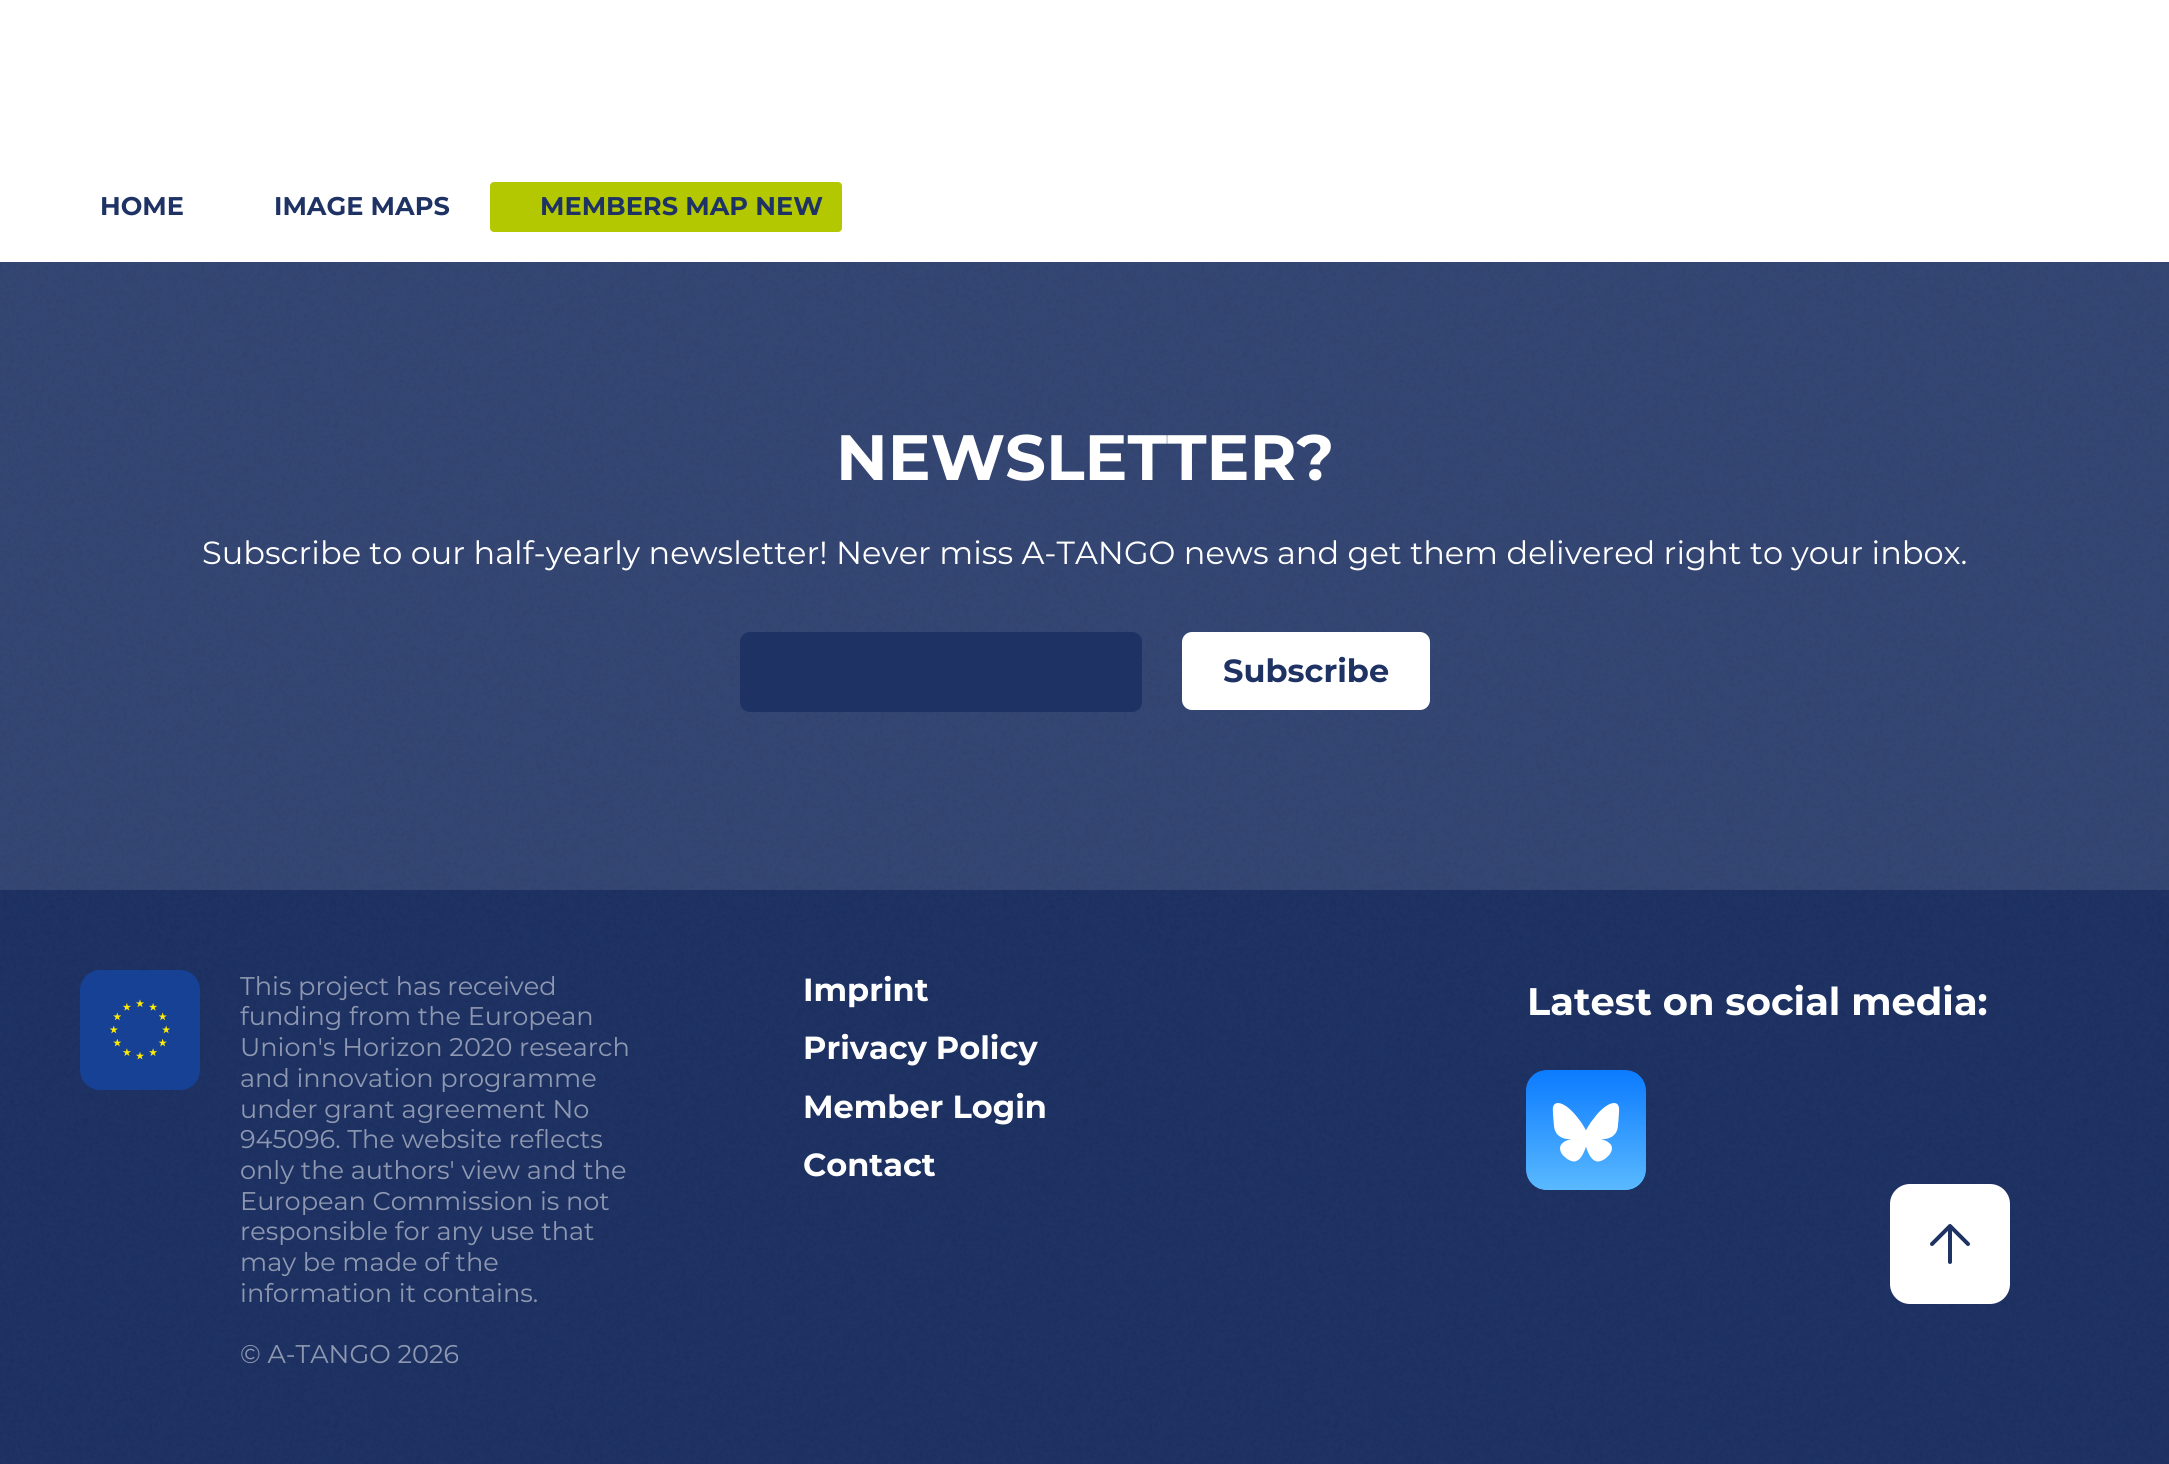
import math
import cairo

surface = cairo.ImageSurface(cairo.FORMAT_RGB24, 2169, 1464)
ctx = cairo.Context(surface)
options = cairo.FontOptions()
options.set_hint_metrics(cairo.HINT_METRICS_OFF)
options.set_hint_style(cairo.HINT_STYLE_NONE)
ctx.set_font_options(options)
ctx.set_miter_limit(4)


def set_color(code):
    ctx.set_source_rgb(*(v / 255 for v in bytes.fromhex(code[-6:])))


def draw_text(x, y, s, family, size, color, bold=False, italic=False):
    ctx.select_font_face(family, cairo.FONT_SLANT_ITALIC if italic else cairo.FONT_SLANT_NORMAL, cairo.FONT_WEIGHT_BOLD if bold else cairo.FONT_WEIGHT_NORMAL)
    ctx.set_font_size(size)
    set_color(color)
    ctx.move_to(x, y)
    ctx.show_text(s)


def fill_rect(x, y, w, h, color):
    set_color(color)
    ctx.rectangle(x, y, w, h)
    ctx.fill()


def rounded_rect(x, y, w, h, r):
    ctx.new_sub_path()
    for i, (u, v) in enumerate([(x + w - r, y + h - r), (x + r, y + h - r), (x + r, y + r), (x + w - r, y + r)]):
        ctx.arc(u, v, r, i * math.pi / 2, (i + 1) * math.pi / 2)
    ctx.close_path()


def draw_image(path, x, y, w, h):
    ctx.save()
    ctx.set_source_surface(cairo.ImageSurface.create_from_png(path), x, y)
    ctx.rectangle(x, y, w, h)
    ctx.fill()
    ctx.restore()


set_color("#ffffff")
ctx.paint()
draw_text(100, 215, "HOME", "Montserrat", 25.6, "#1e3264", bold=True)
draw_text(274, 215, "IMAGE MAPS", "Montserrat", 25.6, "#1e3264", bold=True)
set_color("#b4c801")
rounded_rect(490, 182, 352, 50, 4)
ctx.fill()
draw_text(540, 215, "MEMBERS MAP NEW", "Montserrat", 25.6, "#1e3264", bold=True)
fill_rect(0, 262, 2169, 1202, "#1e3264")
draw_image("assets/img1.png", 0, 262, 2169, 1202)
ctx.set_source_rgba(1, 1, 1, 0.1)
ctx.rectangle(0, 262, 2169, 628)
ctx.fill()
draw_text(836, 480, "NEWSLETTER?", "Montserrat", 64, "#ffffff", bold=True)
draw_text(202, 564, "Subscribe to our half-yearly newsletter! Never miss A-TANGO news and get them delivered right to your inbox.", "Montserrat", 32, "#ffffff")
set_color("#1e3264")
rounded_rect(741, 633, 400, 78, 9)
ctx.fill_preserve()
ctx.stroke()
set_color("#ffffff")
rounded_rect(1182, 632, 248, 78, 10)
ctx.fill()
draw_text(1223, 682, "Subscribe", "Montserrat", 32, "#1e3264", bold=True)
set_color("#164194")
rounded_rect(80, 970, 120, 120, 20)
ctx.fill()
draw_image("assets/img2.png", 109, 999, 62, 61)
draw_text(240, 995, "This project has received", "Montserrat", 25.6, "#8e98b1")
draw_text(240, 1025, "funding from the European", "Montserrat", 25.6, "#8e98b1")
draw_text(240, 1056, "Union's Horizon 2020 research", "Montserrat", 25.6, "#8e98b1")
draw_text(240, 1087, "and innovation programme", "Montserrat", 25.6, "#8e98b1")
draw_text(240, 1118, "under grant agreement No", "Montserrat", 25.6, "#8e98b1")
draw_text(240, 1148, "945096. The website reflects", "Montserrat", 25.6, "#8e98b1")
draw_text(240, 1179, "only the authors' view and the", "Montserrat", 25.6, "#8e98b1")
draw_text(240, 1210, "European Commission is not", "Montserrat", 25.6, "#8e98b1")
draw_text(240, 1240, "responsible for any use that", "Montserrat", 25.6, "#8e98b1")
draw_text(240, 1271, "may be made of the", "Montserrat", 25.6, "#8e98b1")
draw_text(240, 1302, "information it contains.", "Montserrat", 25.6, "#8e98b1")
draw_text(240, 1363, "© A-TANGO 2026", "Montserrat", 25.6, "#8e98b1")
draw_text(803, 1001, "Imprint", "Montserrat", 32, "#ffffff", bold=True)
draw_text(803, 1059, "Privacy Policy", "Montserrat", 32, "#ffffff", bold=True)
draw_text(803, 1118, "Member Login", "Montserrat", 32, "#ffffff", bold=True)
draw_text(803, 1176, "Contact", "Montserrat", 32, "#ffffff", bold=True)
draw_text(1527, 1015, "Latest on social media:", "Montserrat", 38.4, "#ffffff", bold=True)
draw_image("assets/img3.png", 1526, 1070, 120, 120)
rounded_rect(1890, 1184, 120, 120, 20)
ctx.fill()
ctx.new_path()
ctx.move_to(1968, 1244)
ctx.line_to(1950, 1226)
ctx.line_to(1932, 1244)
ctx.move_to(1950, 1262)
ctx.line_to(1950, 1226)
set_color("#1e3264")
ctx.set_line_width(4)
ctx.set_line_cap(cairo.LINE_CAP_ROUND)
ctx.set_line_join(cairo.LINE_JOIN_ROUND)
ctx.stroke()
surface.write_to_png("output.png")
